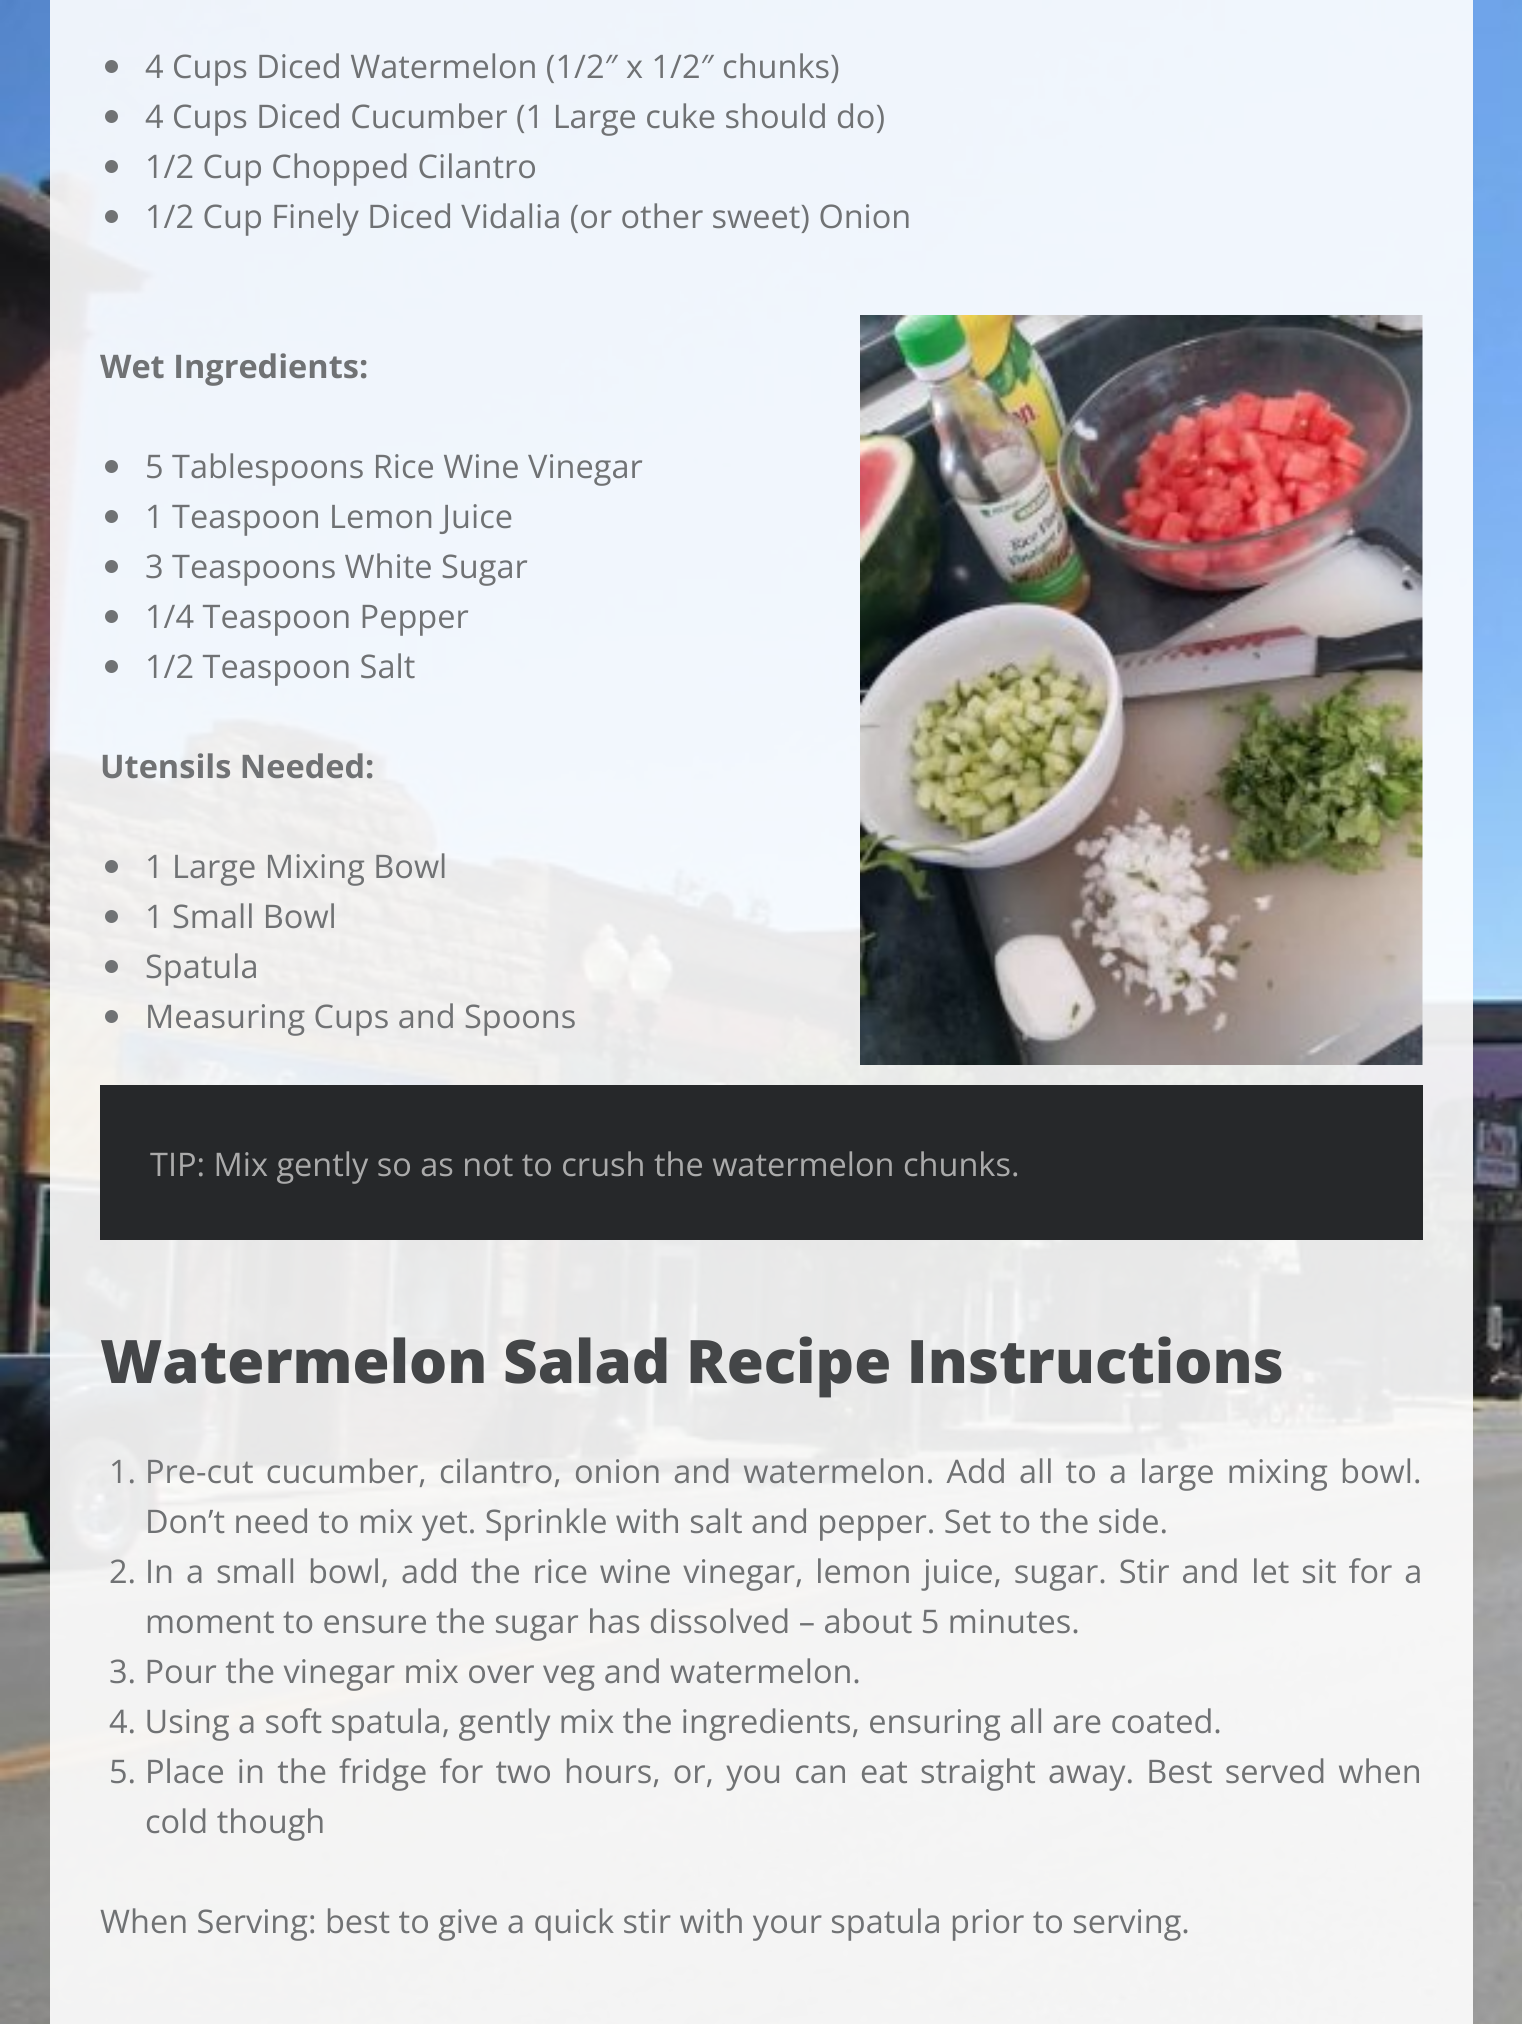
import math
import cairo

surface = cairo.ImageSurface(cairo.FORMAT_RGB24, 1522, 2024)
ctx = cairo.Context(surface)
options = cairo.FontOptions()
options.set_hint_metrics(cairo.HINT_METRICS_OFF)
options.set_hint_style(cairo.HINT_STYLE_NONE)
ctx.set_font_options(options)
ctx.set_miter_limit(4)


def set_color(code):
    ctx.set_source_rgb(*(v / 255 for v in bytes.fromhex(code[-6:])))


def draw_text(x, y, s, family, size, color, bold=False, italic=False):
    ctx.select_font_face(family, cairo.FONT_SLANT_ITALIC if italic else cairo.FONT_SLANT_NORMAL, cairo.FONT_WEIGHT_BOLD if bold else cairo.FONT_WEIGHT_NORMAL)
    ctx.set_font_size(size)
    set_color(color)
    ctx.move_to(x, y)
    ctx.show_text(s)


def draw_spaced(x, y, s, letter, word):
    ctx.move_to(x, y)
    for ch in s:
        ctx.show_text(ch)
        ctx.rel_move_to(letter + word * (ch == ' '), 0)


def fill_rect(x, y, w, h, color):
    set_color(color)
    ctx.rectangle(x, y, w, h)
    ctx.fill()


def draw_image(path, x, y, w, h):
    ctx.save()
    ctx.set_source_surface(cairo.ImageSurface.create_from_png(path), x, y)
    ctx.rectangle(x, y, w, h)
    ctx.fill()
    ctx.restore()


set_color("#ffffff")
ctx.paint()
draw_image("assets/img1.png", 0, 0, 1522, 2024)
set_color("#707274")
ctx.arc(111.5, 66.5, 6.5, 0, 2 * math.pi)
ctx.fill()
draw_text(145, 78, "4 Cups Diced Watermelon (1/2″ x 1/2″ chunks)", "Open Sans", 32.5, "#707274")
ctx.new_path()
ctx.arc(111.5, 116.5, 6.5, 0, 2 * math.pi)
ctx.fill()
draw_text(145, 128, "4 Cups Diced Cucumber (1 Large cuke should do)", "Open Sans", 32.5, "#707274")
ctx.new_path()
ctx.arc(111.5, 166.5, 6.5, 0, 2 * math.pi)
ctx.fill()
draw_text(145, 178, "1/2 Cup Chopped Cilantro", "Open Sans", 32.5, "#707274")
ctx.new_path()
ctx.arc(111.5, 216.5, 6.5, 0, 2 * math.pi)
ctx.fill()
draw_text(145, 228, "1/2 Cup Finely Diced Vidalia (or other sweet) Onion", "Open Sans", 32.5, "#707274")
draw_text(100, 378, "Wet Ingredients:", "Open Sans", 32.5, "#707274", bold=True)
draw_image("assets/img2.png", 860, 315, 563, 750)
ctx.arc(111.5, 466.5, 6.5, 0, 2 * math.pi)
ctx.fill()
draw_text(145, 478, "5 Tablespoons Rice Wine Vinegar", "Open Sans", 32.5, "#707274")
ctx.new_path()
ctx.arc(111.5, 516.5, 6.5, 0, 2 * math.pi)
ctx.fill()
draw_text(145, 528, "1 Teaspoon Lemon Juice", "Open Sans", 32.5, "#707274")
ctx.new_path()
ctx.arc(111.5, 566.5, 6.5, 0, 2 * math.pi)
ctx.fill()
draw_text(145, 578, "3 Teaspoons White Sugar", "Open Sans", 32.5, "#707274")
ctx.new_path()
ctx.arc(111.5, 616.5, 6.5, 0, 2 * math.pi)
ctx.fill()
draw_text(145, 628, "1/4 Teaspoon Pepper", "Open Sans", 32.5, "#707274")
ctx.new_path()
ctx.arc(111.5, 666.5, 6.5, 0, 2 * math.pi)
ctx.fill()
draw_text(145, 678, "1/2 Teaspoon Salt", "Open Sans", 32.5, "#707274")
draw_text(100, 778, "Utensils Needed:", "Open Sans", 32.5, "#707274", bold=True)
ctx.new_path()
ctx.arc(111.5, 866.5, 6.5, 0, 2 * math.pi)
ctx.fill()
draw_text(145, 878, "1 Large Mixing Bowl", "Open Sans", 32.5, "#707274")
ctx.new_path()
ctx.arc(111.5, 916.5, 6.5, 0, 2 * math.pi)
ctx.fill()
draw_text(145, 928, "1 Small Bowl", "Open Sans", 32.5, "#707274")
ctx.new_path()
ctx.arc(111.5, 966.5, 6.5, 0, 2 * math.pi)
ctx.fill()
draw_text(145, 978, "Spatula", "Open Sans", 32.5, "#707274")
ctx.new_path()
ctx.arc(111.5, 1016.5, 6.5, 0, 2 * math.pi)
ctx.fill()
draw_text(145, 1028, "Measuring Cups and Spoons", "Open Sans", 32.5, "#707274")
fill_rect(100, 1085, 1323, 155, "#26282a")
draw_text(150, 1176, "TIP: Mix gently so as not to crush the watermelon chunks.", "Open Sans", 32.5, "#aaaaaa")
draw_text(100, 1383, "Watermelon Salad Recipe Instructions", "Open Sans ExtraBold", 60, "#444648")
draw_text(109, 1483, "1.", "Open Sans", 32.5, "#707274")
draw_spaced(145, 1483, "Pre-cut cucumber, cilantro, onion and watermelon. Add all to a large mixing bowl.", 0, 3.75)
draw_text(145, 1533, "Don’t need to mix yet. Sprinkle with salt and pepper. Set to the side.", "Open Sans", 32.5, "#707274")
draw_text(109, 1583, "2.", "Open Sans", 32.5, "#707274")
draw_spaced(145, 1583, "In a small bowl, add the rice wine vinegar, lemon juice, sugar. Stir and let sit for a", 0, 3.5)
draw_text(145, 1633, "moment to ensure the sugar has dissolved – about 5 minutes.", "Open Sans", 32.5, "#707274")
draw_text(109, 1683, "3. Pour the vinegar mix over veg and watermelon.", "Open Sans", 32.5, "#707274")
draw_text(109, 1733, "4. Using a soft spatula, gently mix the ingredients, ensuring all are coated.", "Open Sans", 32.5, "#707274")
draw_text(109, 1783, "5.", "Open Sans", 32.5, "#707274")
draw_spaced(145, 1783, "Place in the fridge for two hours, or, you can eat straight away. Best served when", 0, 3.75)
draw_text(145, 1833, "cold though", "Open Sans", 32.5, "#707274")
draw_text(100, 1933, "When Serving: best to give a quick stir with your spatula prior to serving.", "Open Sans", 32.5, "#707274")
surface.write_to_png("output.png")
